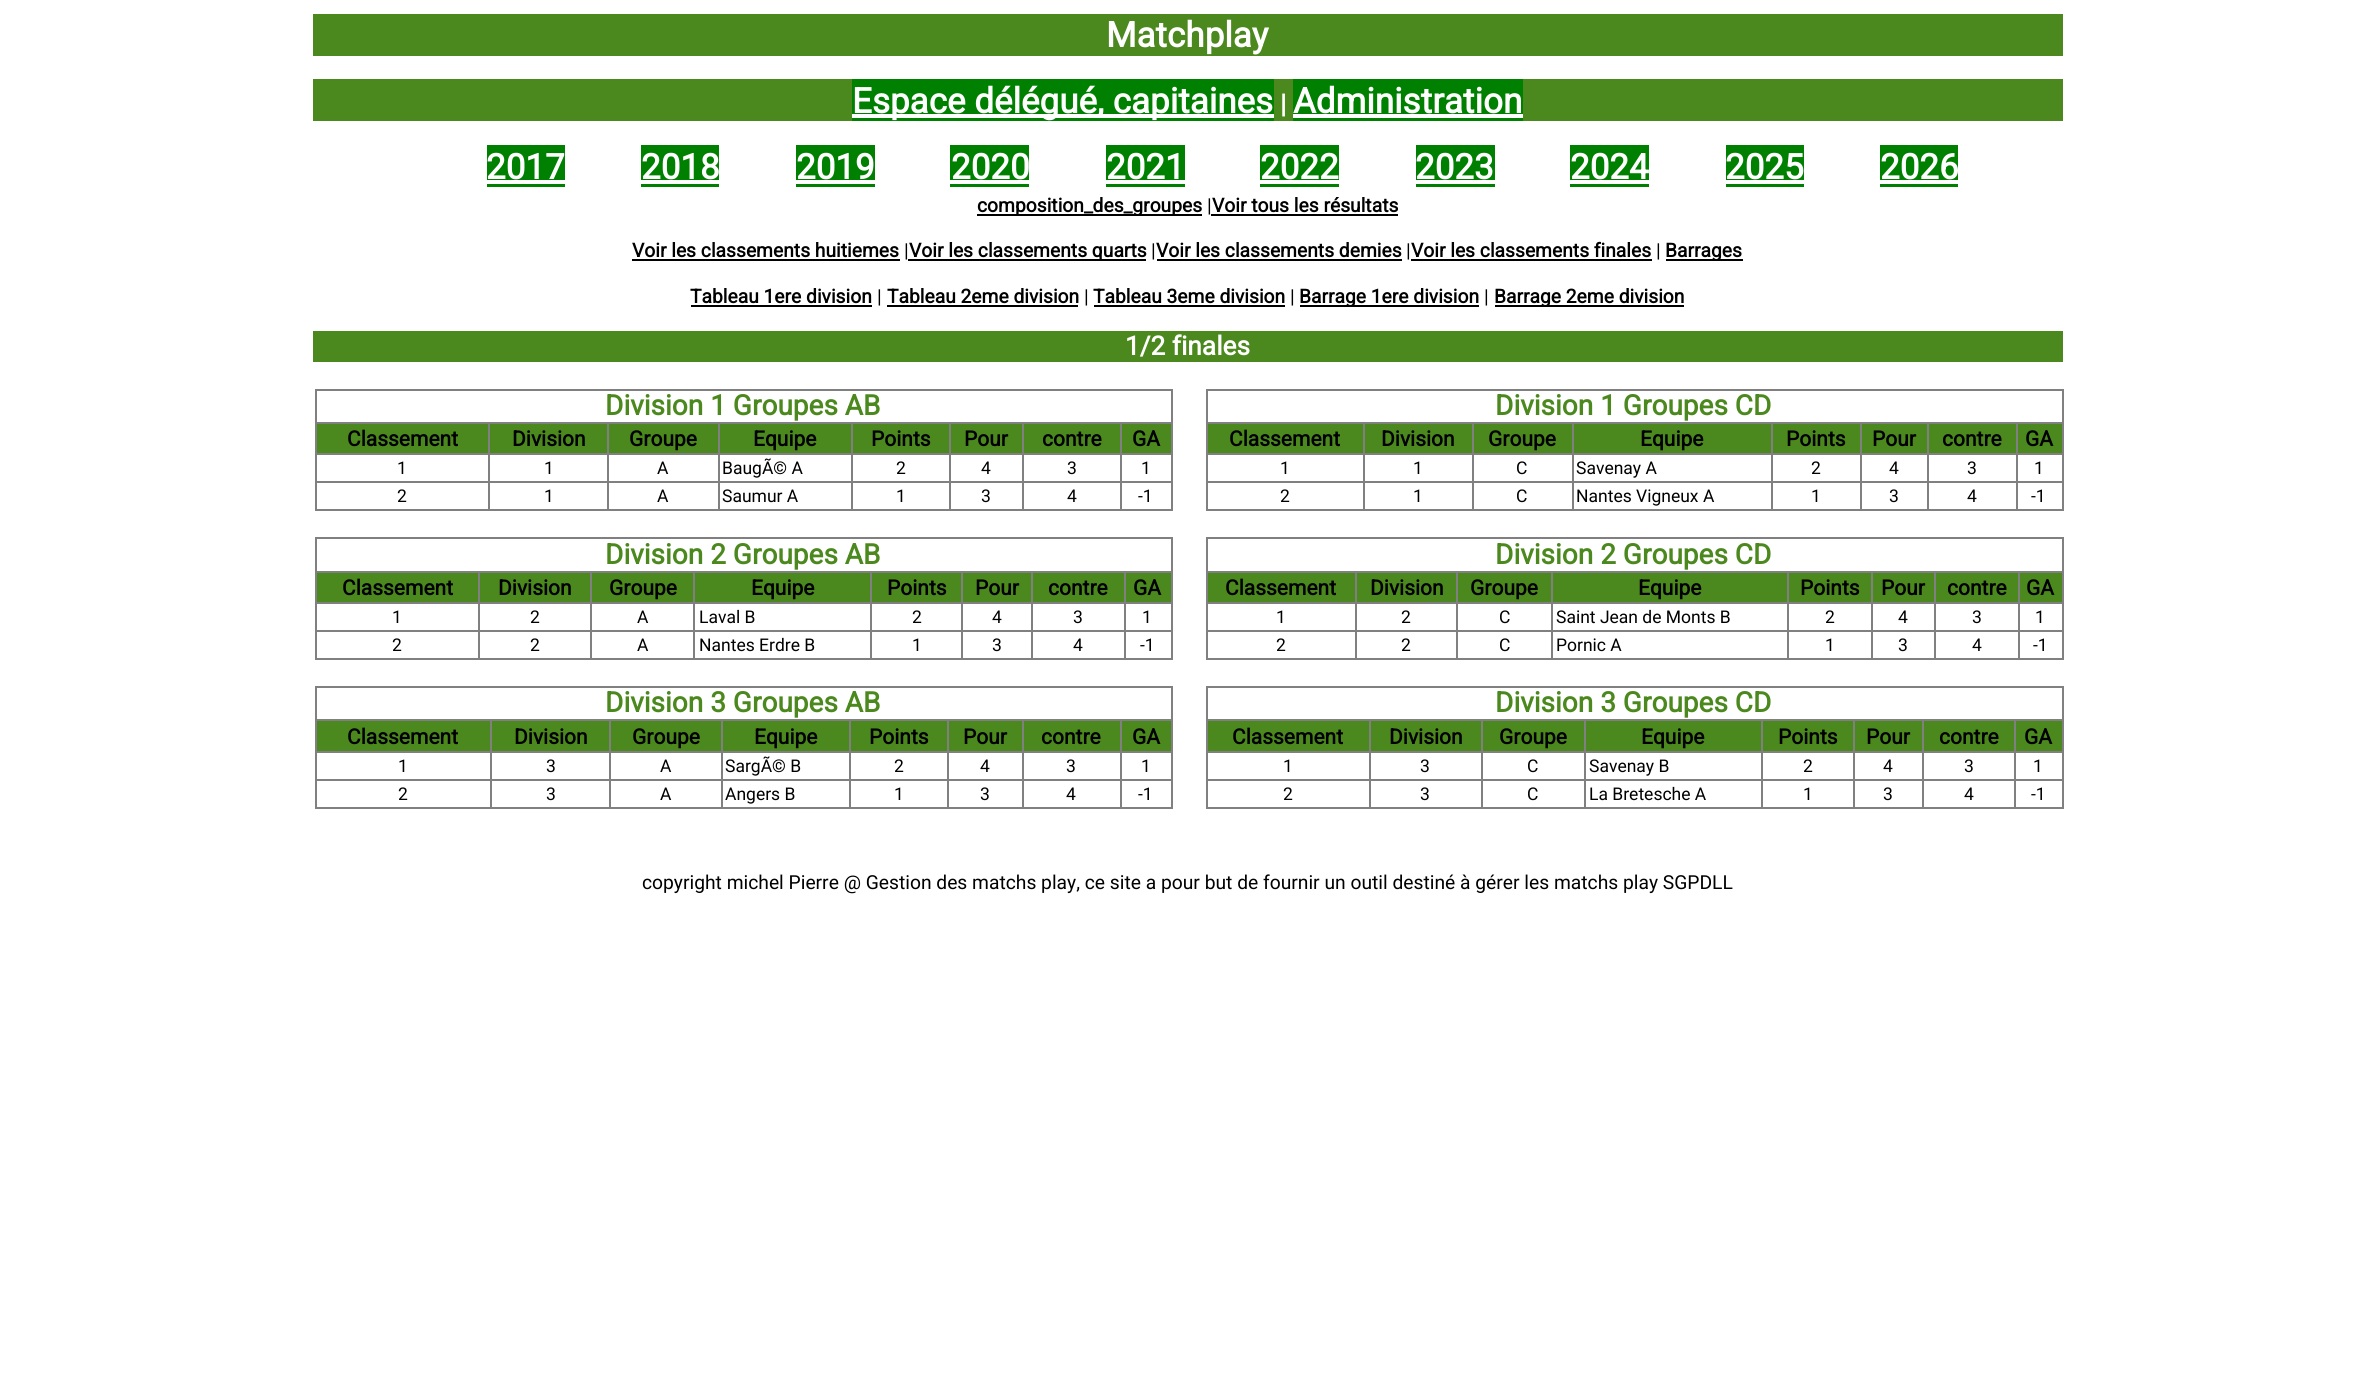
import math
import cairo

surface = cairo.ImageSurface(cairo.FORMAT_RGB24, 2374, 1386)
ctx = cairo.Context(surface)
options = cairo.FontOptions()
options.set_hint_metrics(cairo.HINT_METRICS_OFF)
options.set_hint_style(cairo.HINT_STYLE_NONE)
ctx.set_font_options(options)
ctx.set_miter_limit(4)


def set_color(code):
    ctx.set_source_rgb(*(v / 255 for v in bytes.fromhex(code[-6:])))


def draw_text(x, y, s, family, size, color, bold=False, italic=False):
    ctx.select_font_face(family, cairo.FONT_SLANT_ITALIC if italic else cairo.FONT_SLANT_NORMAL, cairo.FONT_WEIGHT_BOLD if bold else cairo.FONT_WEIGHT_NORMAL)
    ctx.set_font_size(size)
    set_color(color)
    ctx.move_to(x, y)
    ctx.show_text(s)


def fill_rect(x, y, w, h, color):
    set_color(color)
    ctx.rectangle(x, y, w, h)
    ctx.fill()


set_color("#ffffff")
ctx.paint()
fill_rect(313, 14, 1750, 42, "#4b881d")
draw_text(1106, 47, "Matchplay", "Roboto", 35, "#ffffff", bold=True)
fill_rect(313, 79, 1750, 42, "#4b881d")
fill_rect(852, 79, 422, 42, "#008000")
fill_rect(852, 114, 422, 4, "#ffffff")
draw_text(852, 113, "Espace délégué, capitaines", "Roboto", 35, "#ffffff", bold=True)
draw_text(1280, 113, "|", "Roboto", 26.25, "#ffffff", bold=True)
fill_rect(1293, 79, 230, 42, "#008000")
draw_text(1293, 113, "Administration", "Roboto", 35, "#ffffff", bold=True)
fill_rect(1293, 114, 230, 4, "#ffffff")
fill_rect(487, 145, 78, 42, "#008000")
draw_text(486, 179, "2017", "Roboto", 35, "#ffffff", bold=True)
fill_rect(487, 180, 78, 4, "#ffffff")
fill_rect(641, 145, 78, 42, "#008000")
draw_text(641, 179, "2018", "Roboto", 35, "#ffffff", bold=True)
fill_rect(641, 180, 78, 4, "#ffffff")
fill_rect(796, 145, 79, 42, "#008000")
draw_text(796, 179, "2019", "Roboto", 35, "#ffffff", bold=True)
fill_rect(796, 180, 79, 4, "#ffffff")
fill_rect(950, 145, 79, 42, "#008000")
draw_text(951, 179, "2020", "Roboto", 35, "#ffffff", bold=True)
fill_rect(950, 180, 79, 4, "#ffffff")
fill_rect(1106, 145, 79, 42, "#008000")
draw_text(1106, 179, "2021", "Roboto", 35, "#ffffff", bold=True)
fill_rect(1106, 180, 79, 4, "#ffffff")
fill_rect(1260, 145, 79, 42, "#008000")
draw_text(1260, 179, "2022", "Roboto", 35, "#ffffff", bold=True)
fill_rect(1260, 180, 79, 4, "#ffffff")
fill_rect(1416, 145, 79, 42, "#008000")
draw_text(1415, 179, "2023", "Roboto", 35, "#ffffff", bold=True)
fill_rect(1416, 180, 79, 4, "#ffffff")
fill_rect(1570, 145, 79, 42, "#008000")
draw_text(1570, 179, "2024", "Roboto", 35, "#ffffff", bold=True)
fill_rect(1570, 180, 79, 4, "#ffffff")
fill_rect(1726, 145, 78, 42, "#008000")
draw_text(1725, 179, "2025", "Roboto", 35, "#ffffff", bold=True)
fill_rect(1726, 180, 78, 4, "#ffffff")
fill_rect(1880, 145, 78, 42, "#008000")
draw_text(1880, 179, "2026", "Roboto", 35, "#ffffff", bold=True)
fill_rect(1880, 180, 78, 4, "#ffffff")
fill_rect(977, 214, 225, 2, "#000000")
draw_text(977, 212, "composition_des_groupes", "Roboto", 19.25, "#000000", bold=True)
draw_text(1207, 212, "|", "Roboto", 19.25, "#000000")
draw_text(1212, 212, "Voir tous les résultats", "Roboto", 19.25, "#000000", bold=True)
fill_rect(1211, 214, 187, 2, "#000000")
draw_text(632, 257, "Voir les classements huitiemes", "Roboto", 19.25, "#000000", bold=True)
fill_rect(632, 259, 268, 2, "#000000")
draw_text(904, 257, "|", "Roboto", 19.25, "#000000")
fill_rect(908, 259, 238, 2, "#000000")
draw_text(909, 257, "Voir les classements quarts", "Roboto", 19.25, "#000000", bold=True)
draw_text(1151, 257, "|", "Roboto", 19.25, "#000000")
draw_text(1156, 257, "Voir les classements demies", "Roboto", 19.25, "#000000", bold=True)
fill_rect(1157, 259, 245, 2, "#000000")
draw_text(1406, 257, "|", "Roboto", 19.25, "#000000")
draw_text(1411, 257, "Voir les classements finales", "Roboto", 19.25, "#000000", bold=True)
fill_rect(1411, 259, 241, 2, "#000000")
draw_text(1656, 257, "|", "Roboto", 19.25, "#000000")
fill_rect(1666, 259, 77, 2, "#000000")
draw_text(1665, 257, "Barrages", "Roboto", 19.25, "#000000", bold=True)
draw_text(690, 303, "Tableau 1ere division", "Roboto", 19.25, "#000000", bold=True)
fill_rect(691, 305, 181, 2, "#000000")
draw_text(877, 303, "|", "Roboto", 19.25, "#000000")
draw_text(887, 303, "Tableau 2eme division", "Roboto", 19.25, "#000000", bold=True)
fill_rect(887, 305, 191, 2, "#000000")
draw_text(1084, 303, "|", "Roboto", 19.25, "#000000")
draw_text(1093, 303, "Tableau 3eme division", "Roboto", 19.25, "#000000", bold=True)
fill_rect(1094, 305, 191, 2, "#000000")
draw_text(1290, 303, "|", "Roboto", 19.25, "#000000")
fill_rect(1300, 305, 179, 2, "#000000")
draw_text(1299, 303, "Barrage 1ere division", "Roboto", 19.25, "#000000", bold=True)
draw_text(1484, 303, "|", "Roboto", 19.25, "#000000")
fill_rect(1495, 305, 189, 2, "#000000")
draw_text(1494, 303, "Barrage 2eme division", "Roboto", 19.25, "#000000", bold=True)
fill_rect(313, 331, 1750, 31, "#4b881d")
draw_text(1125, 355, "1/2 finales", "Roboto", 26.25, "#ffffff", bold=True)
fill_rect(315, 389, 858, 2, "#808080")
fill_rect(1171, 389, 2, 122, "#808080")
fill_rect(315, 509, 858, 2, "#808080")
fill_rect(315, 389, 2, 122, "#808080")
draw_text(605, 415, "Division 1 Groupes AB", "Roboto", 28, "#4b881d", bold=True)
fill_rect(317, 424, 171, 29, "#4b881d")
fill_rect(1120, 422, 53, 2, "#808080")
fill_rect(1120, 453, 53, 2, "#808080")
fill_rect(1120, 481, 53, 2, "#808080")
fill_rect(1120, 481, 2, 30, "#808080")
fill_rect(1022, 481, 100, 2, "#808080")
fill_rect(1120, 453, 2, 30, "#808080")
fill_rect(1022, 453, 100, 2, "#808080")
fill_rect(1120, 422, 2, 33, "#808080")
fill_rect(1022, 422, 100, 2, "#808080")
fill_rect(1022, 481, 2, 30, "#808080")
fill_rect(949, 481, 75, 2, "#808080")
fill_rect(1022, 453, 2, 30, "#808080")
fill_rect(949, 453, 75, 2, "#808080")
fill_rect(1022, 422, 2, 33, "#808080")
fill_rect(949, 422, 75, 2, "#808080")
fill_rect(949, 481, 2, 30, "#808080")
fill_rect(851, 481, 99, 2, "#808080")
fill_rect(949, 453, 2, 30, "#808080")
fill_rect(851, 453, 99, 2, "#808080")
fill_rect(949, 422, 2, 33, "#808080")
fill_rect(851, 422, 99, 2, "#808080")
fill_rect(851, 481, 2, 30, "#808080")
fill_rect(718, 481, 134, 2, "#808080")
fill_rect(851, 453, 2, 30, "#808080")
fill_rect(718, 453, 134, 2, "#808080")
fill_rect(851, 422, 2, 33, "#808080")
fill_rect(718, 422, 134, 2, "#808080")
fill_rect(718, 481, 2, 30, "#808080")
fill_rect(607, 481, 112, 2, "#808080")
fill_rect(718, 453, 2, 30, "#808080")
fill_rect(607, 453, 112, 2, "#808080")
fill_rect(718, 422, 2, 33, "#808080")
fill_rect(607, 422, 112, 2, "#808080")
fill_rect(607, 481, 2, 30, "#808080")
fill_rect(488, 481, 121, 2, "#808080")
fill_rect(607, 453, 2, 30, "#808080")
fill_rect(488, 453, 121, 2, "#808080")
fill_rect(607, 422, 2, 33, "#808080")
fill_rect(488, 422, 121, 2, "#808080")
fill_rect(488, 481, 2, 30, "#808080")
fill_rect(315, 481, 175, 2, "#808080")
fill_rect(488, 453, 2, 30, "#808080")
fill_rect(315, 453, 175, 2, "#808080")
fill_rect(488, 422, 2, 33, "#808080")
fill_rect(315, 422, 175, 2, "#808080")
draw_text(347, 446, "Classement", "Roboto", 21, "#000000", bold=True)
fill_rect(490, 424, 117, 29, "#4b881d")
draw_text(512, 446, "Division", "Roboto", 21, "#000000", bold=True)
fill_rect(609, 424, 109, 29, "#4b881d")
draw_text(629, 446, "Groupe", "Roboto", 21, "#000000", bold=True)
fill_rect(720, 424, 131, 29, "#4b881d")
draw_text(753, 446, "Equipe", "Roboto", 21, "#000000", bold=True)
fill_rect(853, 424, 96, 29, "#4b881d")
draw_text(871, 446, "Points", "Roboto", 21, "#000000", bold=True)
fill_rect(951, 424, 71, 29, "#4b881d")
draw_text(964, 446, "Pour", "Roboto", 21, "#000000", bold=True)
fill_rect(1024, 424, 96, 29, "#4b881d")
draw_text(1042, 446, "contre", "Roboto", 21, "#000000", bold=True)
fill_rect(1122, 424, 49, 29, "#4b881d")
draw_text(1132, 446, "GA", "Roboto", 21, "#000000", bold=True)
draw_text(397, 474, "1", "Roboto", 17.5, "#000000")
draw_text(544, 474, "1", "Roboto", 17.5, "#000000")
draw_text(657, 474, "A", "Roboto", 17.5, "#000000")
draw_text(722, 474, "BaugÃ© A", "Roboto", 17.5, "#000000")
draw_text(896, 474, "2", "Roboto", 17.5, "#000000")
draw_text(981, 474, "4", "Roboto", 17.5, "#000000")
draw_text(1067, 474, "3", "Roboto", 17.5, "#000000")
draw_text(1141, 474, "1", "Roboto", 17.5, "#000000")
draw_text(397, 502, "2", "Roboto", 17.5, "#000000")
draw_text(544, 502, "1", "Roboto", 17.5, "#000000")
draw_text(657, 502, "A", "Roboto", 17.5, "#000000")
draw_text(722, 502, "Saumur A", "Roboto", 17.5, "#000000")
draw_text(896, 502, "1", "Roboto", 17.5, "#000000")
draw_text(981, 502, "3", "Roboto", 17.5, "#000000")
draw_text(1067, 502, "4", "Roboto", 17.5, "#000000")
draw_text(1138, 502, "-1", "Roboto", 17.5, "#000000")
fill_rect(1206, 389, 857, 2, "#808080")
fill_rect(2062, 389, 2, 122, "#808080")
fill_rect(1206, 509, 857, 2, "#808080")
fill_rect(1206, 389, 2, 122, "#808080")
draw_text(1495, 415, "Division 1 Groupes CD", "Roboto", 28, "#4b881d", bold=True)
fill_rect(1208, 424, 155, 29, "#4b881d")
fill_rect(2016, 422, 47, 2, "#808080")
fill_rect(2016, 453, 47, 2, "#808080")
fill_rect(2016, 481, 47, 2, "#808080")
fill_rect(2016, 481, 2, 30, "#808080")
fill_rect(1927, 481, 91, 2, "#808080")
fill_rect(2016, 453, 2, 30, "#808080")
fill_rect(1927, 453, 91, 2, "#808080")
fill_rect(2016, 422, 2, 33, "#808080")
fill_rect(1927, 422, 91, 2, "#808080")
fill_rect(1927, 481, 2, 30, "#808080")
fill_rect(1860, 481, 69, 2, "#808080")
fill_rect(1927, 453, 2, 30, "#808080")
fill_rect(1860, 453, 69, 2, "#808080")
fill_rect(1927, 422, 2, 33, "#808080")
fill_rect(1860, 422, 69, 2, "#808080")
fill_rect(1860, 481, 2, 30, "#808080")
fill_rect(1771, 481, 91, 2, "#808080")
fill_rect(1860, 453, 2, 30, "#808080")
fill_rect(1771, 453, 91, 2, "#808080")
fill_rect(1860, 422, 2, 33, "#808080")
fill_rect(1771, 422, 91, 2, "#808080")
fill_rect(1771, 481, 2, 30, "#808080")
fill_rect(1572, 481, 201, 2, "#808080")
fill_rect(1771, 453, 2, 30, "#808080")
fill_rect(1572, 453, 201, 2, "#808080")
fill_rect(1771, 422, 2, 33, "#808080")
fill_rect(1572, 422, 201, 2, "#808080")
fill_rect(1572, 481, 2, 30, "#808080")
fill_rect(1472, 481, 101, 2, "#808080")
fill_rect(1572, 453, 2, 30, "#808080")
fill_rect(1472, 453, 101, 2, "#808080")
fill_rect(1572, 422, 2, 33, "#808080")
fill_rect(1472, 422, 101, 2, "#808080")
fill_rect(1472, 481, 2, 30, "#808080")
fill_rect(1363, 481, 111, 2, "#808080")
fill_rect(1472, 453, 2, 30, "#808080")
fill_rect(1363, 453, 111, 2, "#808080")
fill_rect(1472, 422, 2, 33, "#808080")
fill_rect(1363, 422, 111, 2, "#808080")
fill_rect(1363, 481, 2, 30, "#808080")
fill_rect(1206, 481, 159, 2, "#808080")
fill_rect(1363, 453, 2, 30, "#808080")
fill_rect(1206, 453, 159, 2, "#808080")
fill_rect(1363, 422, 2, 33, "#808080")
fill_rect(1206, 422, 159, 2, "#808080")
draw_text(1229, 446, "Classement", "Roboto", 21, "#000000", bold=True)
fill_rect(1365, 424, 107, 29, "#4b881d")
draw_text(1381, 446, "Division", "Roboto", 21, "#000000", bold=True)
fill_rect(1474, 424, 98, 29, "#4b881d")
draw_text(1488, 446, "Groupe", "Roboto", 21, "#000000", bold=True)
fill_rect(1574, 424, 197, 29, "#4b881d")
draw_text(1640, 446, "Equipe", "Roboto", 21, "#000000", bold=True)
fill_rect(1773, 424, 87, 29, "#4b881d")
draw_text(1786, 446, "Points", "Roboto", 21, "#000000", bold=True)
fill_rect(1862, 424, 65, 29, "#4b881d")
draw_text(1872, 446, "Pour", "Roboto", 21, "#000000", bold=True)
fill_rect(1929, 424, 87, 29, "#4b881d")
draw_text(1942, 446, "contre", "Roboto", 21, "#000000", bold=True)
fill_rect(2018, 424, 44, 29, "#4b881d")
draw_text(2025, 446, "GA", "Roboto", 21, "#000000", bold=True)
draw_text(1280, 474, "1", "Roboto", 17.5, "#000000")
draw_text(1413, 474, "1", "Roboto", 17.5, "#000000")
draw_text(1516, 474, "C", "Roboto", 17.5, "#000000")
draw_text(1576, 474, "Savenay A", "Roboto", 17.5, "#000000")
draw_text(1811, 474, "2", "Roboto", 17.5, "#000000")
draw_text(1889, 474, "4", "Roboto", 17.5, "#000000")
draw_text(1967, 474, "3", "Roboto", 17.5, "#000000")
draw_text(2034, 474, "1", "Roboto", 17.5, "#000000")
draw_text(1280, 502, "2", "Roboto", 17.5, "#000000")
draw_text(1413, 502, "1", "Roboto", 17.5, "#000000")
draw_text(1516, 502, "C", "Roboto", 17.5, "#000000")
draw_text(1576, 502, "Nantes Vigneux A", "Roboto", 17.5, "#000000")
draw_text(1811, 502, "1", "Roboto", 17.5, "#000000")
draw_text(1889, 502, "3", "Roboto", 17.5, "#000000")
draw_text(1967, 502, "4", "Roboto", 17.5, "#000000")
draw_text(2031, 502, "-1", "Roboto", 17.5, "#000000")
fill_rect(315, 537, 858, 2, "#808080")
fill_rect(1171, 537, 2, 123, "#808080")
fill_rect(315, 658, 858, 2, "#808080")
fill_rect(315, 537, 2, 123, "#808080")
draw_text(605, 564, "Division 2 Groupes AB", "Roboto", 28, "#4b881d", bold=True)
fill_rect(317, 573, 161, 29, "#4b881d")
fill_rect(1124, 571, 49, 2, "#808080")
fill_rect(1124, 602, 49, 2, "#808080")
fill_rect(1124, 630, 49, 2, "#808080")
fill_rect(1124, 630, 2, 30, "#808080")
fill_rect(1031, 630, 94, 2, "#808080")
fill_rect(1124, 602, 2, 30, "#808080")
fill_rect(1031, 602, 94, 2, "#808080")
fill_rect(1124, 571, 2, 33, "#808080")
fill_rect(1031, 571, 94, 2, "#808080")
fill_rect(1031, 630, 2, 30, "#808080")
fill_rect(961, 630, 72, 2, "#808080")
fill_rect(1031, 602, 2, 30, "#808080")
fill_rect(961, 602, 72, 2, "#808080")
fill_rect(1031, 571, 2, 33, "#808080")
fill_rect(961, 571, 72, 2, "#808080")
fill_rect(961, 630, 2, 30, "#808080")
fill_rect(870, 630, 93, 2, "#808080")
fill_rect(961, 602, 2, 30, "#808080")
fill_rect(870, 602, 93, 2, "#808080")
fill_rect(961, 571, 2, 33, "#808080")
fill_rect(870, 571, 93, 2, "#808080")
fill_rect(870, 630, 2, 30, "#808080")
fill_rect(693, 630, 179, 2, "#808080")
fill_rect(870, 602, 2, 30, "#808080")
fill_rect(693, 602, 179, 2, "#808080")
fill_rect(870, 571, 2, 33, "#808080")
fill_rect(693, 571, 179, 2, "#808080")
fill_rect(693, 630, 2, 30, "#808080")
fill_rect(590, 630, 105, 2, "#808080")
fill_rect(693, 602, 2, 30, "#808080")
fill_rect(590, 602, 105, 2, "#808080")
fill_rect(693, 571, 2, 33, "#808080")
fill_rect(590, 571, 105, 2, "#808080")
fill_rect(590, 630, 2, 30, "#808080")
fill_rect(478, 630, 114, 2, "#808080")
fill_rect(590, 602, 2, 30, "#808080")
fill_rect(478, 602, 114, 2, "#808080")
fill_rect(590, 571, 2, 33, "#808080")
fill_rect(478, 571, 114, 2, "#808080")
fill_rect(478, 630, 2, 30, "#808080")
fill_rect(315, 630, 165, 2, "#808080")
fill_rect(478, 602, 2, 30, "#808080")
fill_rect(315, 602, 165, 2, "#808080")
fill_rect(478, 571, 2, 33, "#808080")
fill_rect(315, 571, 165, 2, "#808080")
draw_text(342, 595, "Classement", "Roboto", 21, "#000000", bold=True)
fill_rect(480, 573, 110, 29, "#4b881d")
draw_text(498, 595, "Division", "Roboto", 21, "#000000", bold=True)
fill_rect(592, 573, 101, 29, "#4b881d")
draw_text(609, 595, "Groupe", "Roboto", 21, "#000000", bold=True)
fill_rect(695, 573, 175, 29, "#4b881d")
draw_text(751, 595, "Equipe", "Roboto", 21, "#000000", bold=True)
fill_rect(872, 573, 89, 29, "#4b881d")
draw_text(887, 595, "Points", "Roboto", 21, "#000000", bold=True)
fill_rect(963, 573, 68, 29, "#4b881d")
draw_text(975, 595, "Pour", "Roboto", 21, "#000000", bold=True)
fill_rect(1033, 573, 91, 29, "#4b881d")
draw_text(1048, 595, "contre", "Roboto", 21, "#000000", bold=True)
fill_rect(1126, 573, 45, 29, "#4b881d")
draw_text(1133, 595, "GA", "Roboto", 21, "#000000", bold=True)
draw_text(392, 623, "1", "Roboto", 17.5, "#000000")
draw_text(530, 623, "2", "Roboto", 17.5, "#000000")
draw_text(637, 623, "A", "Roboto", 17.5, "#000000")
draw_text(699, 623, "Laval B", "Roboto", 17.5, "#000000")
draw_text(912, 623, "2", "Roboto", 17.5, "#000000")
draw_text(992, 623, "4", "Roboto", 17.5, "#000000")
draw_text(1073, 623, "3", "Roboto", 17.5, "#000000")
draw_text(1142, 623, "1", "Roboto", 17.5, "#000000")
draw_text(392, 651, "2", "Roboto", 17.5, "#000000")
draw_text(530, 651, "2", "Roboto", 17.5, "#000000")
draw_text(637, 651, "A", "Roboto", 17.5, "#000000")
draw_text(699, 651, "Nantes Erdre B", "Roboto", 17.5, "#000000")
draw_text(912, 651, "1", "Roboto", 17.5, "#000000")
draw_text(992, 651, "3", "Roboto", 17.5, "#000000")
draw_text(1073, 651, "4", "Roboto", 17.5, "#000000")
draw_text(1140, 651, "-1", "Roboto", 17.5, "#000000")
fill_rect(1206, 537, 857, 2, "#808080")
fill_rect(2062, 537, 2, 123, "#808080")
fill_rect(1206, 658, 857, 2, "#808080")
fill_rect(1206, 537, 2, 123, "#808080")
draw_text(1495, 564, "Division 2 Groupes CD", "Roboto", 28, "#4b881d", bold=True)
fill_rect(1208, 573, 147, 29, "#4b881d")
fill_rect(2018, 571, 45, 2, "#808080")
fill_rect(2018, 602, 45, 2, "#808080")
fill_rect(2018, 630, 45, 2, "#808080")
fill_rect(2018, 630, 2, 30, "#808080")
fill_rect(1934, 630, 86, 2, "#808080")
fill_rect(2018, 602, 2, 30, "#808080")
fill_rect(1934, 602, 86, 2, "#808080")
fill_rect(2018, 571, 2, 33, "#808080")
fill_rect(1934, 571, 86, 2, "#808080")
fill_rect(1934, 630, 2, 30, "#808080")
fill_rect(1871, 630, 65, 2, "#808080")
fill_rect(1934, 602, 2, 30, "#808080")
fill_rect(1871, 602, 65, 2, "#808080")
fill_rect(1934, 571, 2, 33, "#808080")
fill_rect(1871, 571, 65, 2, "#808080")
fill_rect(1871, 630, 2, 30, "#808080")
fill_rect(1787, 630, 86, 2, "#808080")
fill_rect(1871, 602, 2, 30, "#808080")
fill_rect(1787, 602, 86, 2, "#808080")
fill_rect(1871, 571, 2, 33, "#808080")
fill_rect(1787, 571, 86, 2, "#808080")
fill_rect(1787, 630, 2, 30, "#808080")
fill_rect(1551, 630, 238, 2, "#808080")
fill_rect(1787, 602, 2, 30, "#808080")
fill_rect(1551, 602, 238, 2, "#808080")
fill_rect(1787, 571, 2, 33, "#808080")
fill_rect(1551, 571, 238, 2, "#808080")
fill_rect(1551, 630, 2, 30, "#808080")
fill_rect(1456, 630, 96, 2, "#808080")
fill_rect(1551, 602, 2, 30, "#808080")
fill_rect(1456, 602, 96, 2, "#808080")
fill_rect(1551, 571, 2, 33, "#808080")
fill_rect(1456, 571, 96, 2, "#808080")
fill_rect(1456, 630, 2, 30, "#808080")
fill_rect(1355, 630, 103, 2, "#808080")
fill_rect(1456, 602, 2, 30, "#808080")
fill_rect(1355, 602, 103, 2, "#808080")
fill_rect(1456, 571, 2, 33, "#808080")
fill_rect(1355, 571, 103, 2, "#808080")
fill_rect(1355, 630, 2, 30, "#808080")
fill_rect(1206, 630, 150, 2, "#808080")
fill_rect(1355, 602, 2, 30, "#808080")
fill_rect(1206, 602, 150, 2, "#808080")
fill_rect(1355, 571, 2, 33, "#808080")
fill_rect(1206, 571, 150, 2, "#808080")
draw_text(1225, 595, "Classement", "Roboto", 21, "#000000", bold=True)
fill_rect(1357, 573, 99, 29, "#4b881d")
draw_text(1370, 595, "Division", "Roboto", 21, "#000000", bold=True)
fill_rect(1458, 573, 93, 29, "#4b881d")
draw_text(1470, 595, "Groupe", "Roboto", 21, "#000000", bold=True)
fill_rect(1553, 573, 234, 29, "#4b881d")
draw_text(1638, 595, "Equipe", "Roboto", 21, "#000000", bold=True)
fill_rect(1789, 573, 82, 29, "#4b881d")
draw_text(1800, 595, "Points", "Roboto", 21, "#000000", bold=True)
fill_rect(1873, 573, 61, 29, "#4b881d")
draw_text(1881, 595, "Pour", "Roboto", 21, "#000000", bold=True)
fill_rect(1936, 573, 82, 29, "#4b881d")
draw_text(1947, 595, "contre", "Roboto", 21, "#000000", bold=True)
fill_rect(2020, 573, 42, 29, "#4b881d")
draw_text(2026, 595, "GA", "Roboto", 21, "#000000", bold=True)
draw_text(1276, 623, "1", "Roboto", 17.5, "#000000")
draw_text(1401, 623, "2", "Roboto", 17.5, "#000000")
draw_text(1499, 623, "C", "Roboto", 17.5, "#000000")
draw_text(1556, 623, "Saint Jean de Monts B", "Roboto", 17.5, "#000000")
draw_text(1825, 623, "2", "Roboto", 17.5, "#000000")
draw_text(1898, 623, "4", "Roboto", 17.5, "#000000")
draw_text(1972, 623, "3", "Roboto", 17.5, "#000000")
draw_text(2035, 623, "1", "Roboto", 17.5, "#000000")
draw_text(1276, 651, "2", "Roboto", 17.5, "#000000")
draw_text(1401, 651, "2", "Roboto", 17.5, "#000000")
draw_text(1499, 651, "C", "Roboto", 17.5, "#000000")
draw_text(1556, 651, "Pornic A", "Roboto", 17.5, "#000000")
draw_text(1825, 651, "1", "Roboto", 17.5, "#000000")
draw_text(1898, 651, "3", "Roboto", 17.5, "#000000")
draw_text(1972, 651, "4", "Roboto", 17.5, "#000000")
draw_text(2033, 651, "-1", "Roboto", 17.5, "#000000")
fill_rect(315, 686, 858, 2, "#808080")
fill_rect(1171, 686, 2, 123, "#808080")
fill_rect(315, 807, 858, 2, "#808080")
fill_rect(315, 686, 2, 123, "#808080")
draw_text(605, 712, "Division 3 Groupes AB", "Roboto", 28, "#4b881d", bold=True)
fill_rect(317, 721, 173, 30, "#4b881d")
fill_rect(1120, 719, 53, 2, "#808080")
fill_rect(1120, 751, 53, 2, "#808080")
fill_rect(1120, 779, 53, 2, "#808080")
fill_rect(1120, 779, 2, 30, "#808080")
fill_rect(1022, 779, 100, 2, "#808080")
fill_rect(1120, 751, 2, 30, "#808080")
fill_rect(1022, 751, 100, 2, "#808080")
fill_rect(1120, 719, 2, 34, "#808080")
fill_rect(1022, 719, 100, 2, "#808080")
fill_rect(1022, 779, 2, 30, "#808080")
fill_rect(947, 779, 77, 2, "#808080")
fill_rect(1022, 751, 2, 30, "#808080")
fill_rect(947, 751, 77, 2, "#808080")
fill_rect(1022, 719, 2, 34, "#808080")
fill_rect(947, 719, 77, 2, "#808080")
fill_rect(947, 779, 2, 30, "#808080")
fill_rect(849, 779, 100, 2, "#808080")
fill_rect(947, 751, 2, 30, "#808080")
fill_rect(849, 751, 100, 2, "#808080")
fill_rect(947, 719, 2, 34, "#808080")
fill_rect(849, 719, 100, 2, "#808080")
fill_rect(849, 779, 2, 30, "#808080")
fill_rect(721, 779, 130, 2, "#808080")
fill_rect(849, 751, 2, 30, "#808080")
fill_rect(721, 751, 130, 2, "#808080")
fill_rect(849, 719, 2, 34, "#808080")
fill_rect(721, 719, 130, 2, "#808080")
fill_rect(721, 779, 2, 30, "#808080")
fill_rect(609, 779, 114, 2, "#808080")
fill_rect(721, 751, 2, 30, "#808080")
fill_rect(609, 751, 114, 2, "#808080")
fill_rect(721, 719, 2, 34, "#808080")
fill_rect(609, 719, 114, 2, "#808080")
fill_rect(609, 779, 2, 30, "#808080")
fill_rect(490, 779, 121, 2, "#808080")
fill_rect(609, 751, 2, 30, "#808080")
fill_rect(490, 751, 121, 2, "#808080")
fill_rect(609, 719, 2, 34, "#808080")
fill_rect(490, 719, 121, 2, "#808080")
fill_rect(490, 779, 2, 30, "#808080")
fill_rect(315, 779, 177, 2, "#808080")
fill_rect(490, 751, 2, 30, "#808080")
fill_rect(315, 751, 177, 2, "#808080")
fill_rect(490, 719, 2, 34, "#808080")
fill_rect(315, 719, 177, 2, "#808080")
draw_text(347, 744, "Classement", "Roboto", 21, "#000000", bold=True)
fill_rect(492, 721, 117, 30, "#4b881d")
draw_text(514, 744, "Division", "Roboto", 21, "#000000", bold=True)
fill_rect(611, 721, 110, 30, "#4b881d")
draw_text(632, 744, "Groupe", "Roboto", 21, "#000000", bold=True)
fill_rect(723, 721, 126, 30, "#4b881d")
draw_text(754, 744, "Equipe", "Roboto", 21, "#000000", bold=True)
fill_rect(851, 721, 96, 30, "#4b881d")
draw_text(869, 744, "Points", "Roboto", 21, "#000000", bold=True)
fill_rect(949, 721, 73, 30, "#4b881d")
draw_text(963, 744, "Pour", "Roboto", 21, "#000000", bold=True)
fill_rect(1024, 721, 96, 30, "#4b881d")
draw_text(1041, 744, "contre", "Roboto", 21, "#000000", bold=True)
fill_rect(1122, 721, 49, 30, "#4b881d")
draw_text(1132, 744, "GA", "Roboto", 21, "#000000", bold=True)
draw_text(398, 772, "1", "Roboto", 17.5, "#000000")
draw_text(546, 772, "3", "Roboto", 17.5, "#000000")
draw_text(660, 772, "A", "Roboto", 17.5, "#000000")
draw_text(725, 772, "SargÃ© B", "Roboto", 17.5, "#000000")
draw_text(894, 772, "2", "Roboto", 17.5, "#000000")
draw_text(980, 772, "4", "Roboto", 17.5, "#000000")
draw_text(1066, 772, "3", "Roboto", 17.5, "#000000")
draw_text(1141, 772, "1", "Roboto", 17.5, "#000000")
draw_text(398, 800, "2", "Roboto", 17.5, "#000000")
draw_text(546, 800, "3", "Roboto", 17.5, "#000000")
draw_text(660, 800, "A", "Roboto", 17.5, "#000000")
draw_text(725, 800, "Angers B", "Roboto", 17.5, "#000000")
draw_text(894, 800, "1", "Roboto", 17.5, "#000000")
draw_text(980, 800, "3", "Roboto", 17.5, "#000000")
draw_text(1066, 800, "4", "Roboto", 17.5, "#000000")
draw_text(1138, 800, "-1", "Roboto", 17.5, "#000000")
fill_rect(1206, 686, 857, 2, "#808080")
fill_rect(2062, 686, 2, 123, "#808080")
fill_rect(1206, 807, 857, 2, "#808080")
fill_rect(1206, 686, 2, 123, "#808080")
draw_text(1495, 712, "Division 3 Groupes CD", "Roboto", 28, "#4b881d", bold=True)
fill_rect(1208, 721, 161, 30, "#4b881d")
fill_rect(2014, 719, 49, 2, "#808080")
fill_rect(2014, 751, 49, 2, "#808080")
fill_rect(2014, 779, 49, 2, "#808080")
fill_rect(2014, 779, 2, 30, "#808080")
fill_rect(1922, 779, 94, 2, "#808080")
fill_rect(2014, 751, 2, 30, "#808080")
fill_rect(1922, 751, 94, 2, "#808080")
fill_rect(2014, 719, 2, 34, "#808080")
fill_rect(1922, 719, 94, 2, "#808080")
fill_rect(1922, 779, 2, 30, "#808080")
fill_rect(1853, 779, 70, 2, "#808080")
fill_rect(1922, 751, 2, 30, "#808080")
fill_rect(1853, 751, 70, 2, "#808080")
fill_rect(1922, 719, 2, 34, "#808080")
fill_rect(1853, 719, 70, 2, "#808080")
fill_rect(1853, 779, 2, 30, "#808080")
fill_rect(1761, 779, 94, 2, "#808080")
fill_rect(1853, 751, 2, 30, "#808080")
fill_rect(1761, 751, 94, 2, "#808080")
fill_rect(1853, 719, 2, 34, "#808080")
fill_rect(1761, 719, 94, 2, "#808080")
fill_rect(1761, 779, 2, 30, "#808080")
fill_rect(1584, 779, 178, 2, "#808080")
fill_rect(1761, 751, 2, 30, "#808080")
fill_rect(1584, 751, 178, 2, "#808080")
fill_rect(1761, 719, 2, 34, "#808080")
fill_rect(1584, 719, 178, 2, "#808080")
fill_rect(1584, 779, 2, 30, "#808080")
fill_rect(1481, 779, 105, 2, "#808080")
fill_rect(1584, 751, 2, 30, "#808080")
fill_rect(1481, 751, 105, 2, "#808080")
fill_rect(1584, 719, 2, 34, "#808080")
fill_rect(1481, 719, 105, 2, "#808080")
fill_rect(1481, 779, 2, 30, "#808080")
fill_rect(1369, 779, 113, 2, "#808080")
fill_rect(1481, 751, 2, 30, "#808080")
fill_rect(1369, 751, 113, 2, "#808080")
fill_rect(1481, 719, 2, 34, "#808080")
fill_rect(1369, 719, 113, 2, "#808080")
fill_rect(1369, 779, 2, 30, "#808080")
fill_rect(1206, 779, 164, 2, "#808080")
fill_rect(1369, 751, 2, 30, "#808080")
fill_rect(1206, 751, 164, 2, "#808080")
fill_rect(1369, 719, 2, 34, "#808080")
fill_rect(1206, 719, 164, 2, "#808080")
draw_text(1232, 744, "Classement", "Roboto", 21, "#000000", bold=True)
fill_rect(1371, 721, 110, 30, "#4b881d")
draw_text(1389, 744, "Division", "Roboto", 21, "#000000", bold=True)
fill_rect(1483, 721, 101, 30, "#4b881d")
draw_text(1499, 744, "Groupe", "Roboto", 21, "#000000", bold=True)
fill_rect(1586, 721, 175, 30, "#4b881d")
draw_text(1641, 744, "Equipe", "Roboto", 21, "#000000", bold=True)
fill_rect(1763, 721, 90, 30, "#4b881d")
draw_text(1778, 744, "Points", "Roboto", 21, "#000000", bold=True)
fill_rect(1855, 721, 67, 30, "#4b881d")
draw_text(1866, 744, "Pour", "Roboto", 21, "#000000", bold=True)
fill_rect(1924, 721, 90, 30, "#4b881d")
draw_text(1939, 744, "contre", "Roboto", 21, "#000000", bold=True)
fill_rect(2016, 721, 46, 30, "#4b881d")
draw_text(2024, 744, "GA", "Roboto", 21, "#000000", bold=True)
draw_text(1283, 772, "1", "Roboto", 17.5, "#000000")
draw_text(1420, 772, "3", "Roboto", 17.5, "#000000")
draw_text(1527, 772, "C", "Roboto", 17.5, "#000000")
draw_text(1589, 772, "Savenay B", "Roboto", 17.5, "#000000")
draw_text(1803, 772, "2", "Roboto", 17.5, "#000000")
draw_text(1883, 772, "4", "Roboto", 17.5, "#000000")
draw_text(1964, 772, "3", "Roboto", 17.5, "#000000")
draw_text(2033, 772, "1", "Roboto", 17.5, "#000000")
draw_text(1283, 800, "2", "Roboto", 17.5, "#000000")
draw_text(1420, 800, "3", "Roboto", 17.5, "#000000")
draw_text(1527, 800, "C", "Roboto", 17.5, "#000000")
draw_text(1589, 800, "La Bretesche A", "Roboto", 17.5, "#000000")
draw_text(1803, 800, "1", "Roboto", 17.5, "#000000")
draw_text(1883, 800, "3", "Roboto", 17.5, "#000000")
draw_text(1964, 800, "4", "Roboto", 17.5, "#000000")
draw_text(2031, 800, "-1", "Roboto", 17.5, "#000000")
draw_text(642, 889, "copyright michel Pierre @ Gestion des matchs play, ce site a pour but de fournir un outil destiné à gérer les matchs play SGPDLL", "Roboto", 19.25, "#000000")
surface.write_to_png("output.png")
